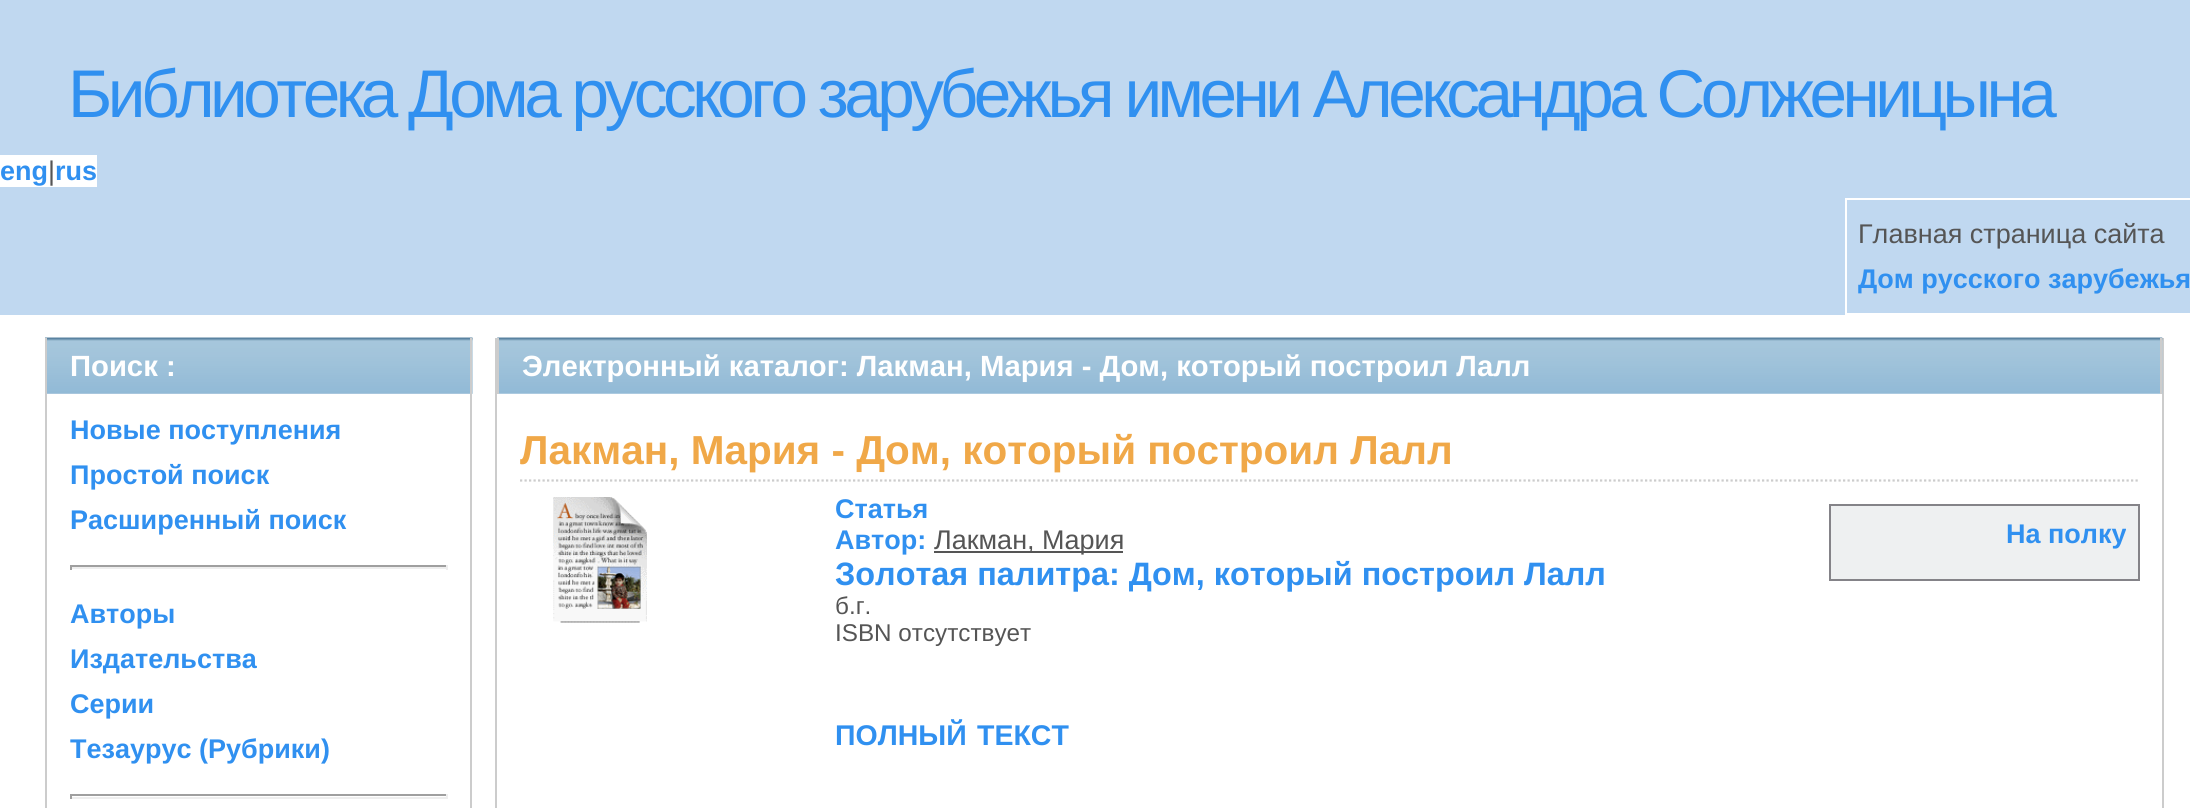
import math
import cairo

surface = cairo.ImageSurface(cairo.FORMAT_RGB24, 2190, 808)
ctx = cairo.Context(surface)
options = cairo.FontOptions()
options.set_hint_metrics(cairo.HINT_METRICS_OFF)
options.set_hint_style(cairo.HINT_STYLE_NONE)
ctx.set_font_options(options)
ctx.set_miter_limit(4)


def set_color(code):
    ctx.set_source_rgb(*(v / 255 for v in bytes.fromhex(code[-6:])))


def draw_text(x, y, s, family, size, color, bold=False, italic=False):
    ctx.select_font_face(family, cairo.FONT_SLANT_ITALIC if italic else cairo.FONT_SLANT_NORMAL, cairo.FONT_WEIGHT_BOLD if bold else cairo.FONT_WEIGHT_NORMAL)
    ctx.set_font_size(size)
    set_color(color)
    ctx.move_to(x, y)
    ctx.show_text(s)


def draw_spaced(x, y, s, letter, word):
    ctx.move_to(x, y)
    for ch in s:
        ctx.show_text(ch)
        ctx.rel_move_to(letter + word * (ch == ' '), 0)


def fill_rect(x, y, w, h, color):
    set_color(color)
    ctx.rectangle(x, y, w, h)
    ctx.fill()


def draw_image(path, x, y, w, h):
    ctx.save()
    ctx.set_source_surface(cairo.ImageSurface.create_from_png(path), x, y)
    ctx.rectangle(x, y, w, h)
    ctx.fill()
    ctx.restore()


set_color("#ffffff")
ctx.paint()
fill_rect(0, 0, 2190, 315, "#c0d8f0")
ctx.select_font_face("Liberation Sans")
ctx.set_font_size(67.5)
set_color("#3090f0")
draw_spaced(68, 117, "Библиотека Дома русского зарубежья имени Александра Солженицына", -4.5, 0)
fill_rect(0, 155, 97, 32, "#ffffff")
draw_text(0, 180, "eng", "Liberation Sans", 27, "#3090f0", bold=True)
draw_text(48, 180, "|", "Liberation Sans", 27, "#555555")
draw_text(55, 180, "rus", "Liberation Sans", 27, "#3090f0", bold=True)
ctx.rectangle(1846, 199, 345, 115)
set_color("#ffffff")
ctx.stroke()
draw_text(1858, 243, "Главная страница сайта", "Liberation Sans", 27, "#555555")
draw_text(1858, 288, "Дом русского зарубежья", "Liberation Sans", 27, "#3090f0", bold=True)
fill_rect(47, 338, 426, 56, "#eef0f1")
draw_image("assets/img1.png", 45, 337, 428, 57)
fill_rect(470, 338, 2, 470, "#cccccc")
fill_rect(45, 338, 2, 470, "#cccccc")
draw_text(70, 376, "Поиск :", "Liberation Sans", 29.25, "#ffffff", bold=True)
draw_text(70, 439, "Новые поступления", "Liberation Sans", 27, "#3090f0", bold=True)
draw_text(70, 484, "Простой поиск", "Liberation Sans", 27, "#3090f0", bold=True)
draw_text(70, 529, "Расширенный поиск", "Liberation Sans", 27, "#3090f0", bold=True)
fill_rect(70, 565, 378, 2, "#9f9f9f")
fill_rect(446, 565, 2, 5, "#eeeeee")
fill_rect(70, 567, 378, 2, "#eeeeee")
fill_rect(70, 565, 2, 5, "#9f9f9f")
draw_text(70, 623, "Авторы", "Liberation Sans", 27, "#3090f0", bold=True)
draw_text(70, 668, "Издательства", "Liberation Sans", 27, "#3090f0", bold=True)
draw_text(70, 713, "Серии", "Liberation Sans", 27, "#3090f0", bold=True)
draw_text(70, 758, "Тезаурус (Рубрики)", "Liberation Sans", 27, "#3090f0", bold=True)
fill_rect(70, 794, 378, 2, "#9f9f9f")
fill_rect(446, 794, 2, 5, "#eeeeee")
fill_rect(70, 797, 378, 2, "#eeeeee")
fill_rect(70, 794, 2, 5, "#9f9f9f")
fill_rect(2162, 338, 2, 470, "#cccccc")
fill_rect(495, 338, 2, 470, "#cccccc")
draw_image("assets/img2.png", 497, 337, 1666, 57)
fill_rect(2160, 338, 2, 56, "#cccccc")
fill_rect(497, 338, 2, 56, "#cccccc")
draw_text(522, 376, "Электронный каталог: Лакман, Мария - Дом, который построил Лалл", "Liberation Sans", 29.25, "#ffffff", bold=True)
ctx.new_path()
ctx.move_to(520, 480.5)
ctx.line_to(2140, 480.5)
set_color("#cccccc")
ctx.set_line_width(2.2)
ctx.set_dash([2.25, 2.25])
ctx.stroke()
draw_text(520, 464, "Лакман, Мария - Дом, который построил Лалл", "Liberation Sans", 40.5, "#f0a848", bold=True)
draw_image("assets/img3.png", 553, 497, 94, 126)
draw_text(835, 518, "Статья", "Liberation Sans", 27, "#3090f0", bold=True)
draw_text(835, 549, "Автор:", "Liberation Sans", 27, "#3090f0", bold=True)
fill_rect(934, 551, 189, 2, "#555555")
draw_text(934, 549, "Лакман, Мария", "Liberation Sans", 27, "#555555")
draw_text(835, 585, "Золотая палитра: Дом, который построил Лалл", "Liberation Sans", 32.4, "#3090f0", bold=True)
draw_text(835, 614, "б.г.", "Liberation Sans", 24.25, "#555555")
draw_text(835, 641, "ISBN отсутствует", "Liberation Sans", 24.25, "#555555")
draw_text(835, 745, "ПОЛНЫЙ", "Liberation Sans", 28.5, "#3090f0", bold=True)
draw_text(977, 745, "ТЕКСТ", "Liberation Sans", 28.5, "#3090f0", bold=True)
set_color("#eef0f1")
ctx.rectangle(1830, 505, 309, 75)
ctx.fill_preserve()
set_color("#848388")
ctx.set_line_width(2)
ctx.set_dash([])
ctx.stroke()
draw_text(2006, 543, "На полку", "Liberation Sans", 27, "#3090f0", bold=True)
surface.write_to_png("output.png")
